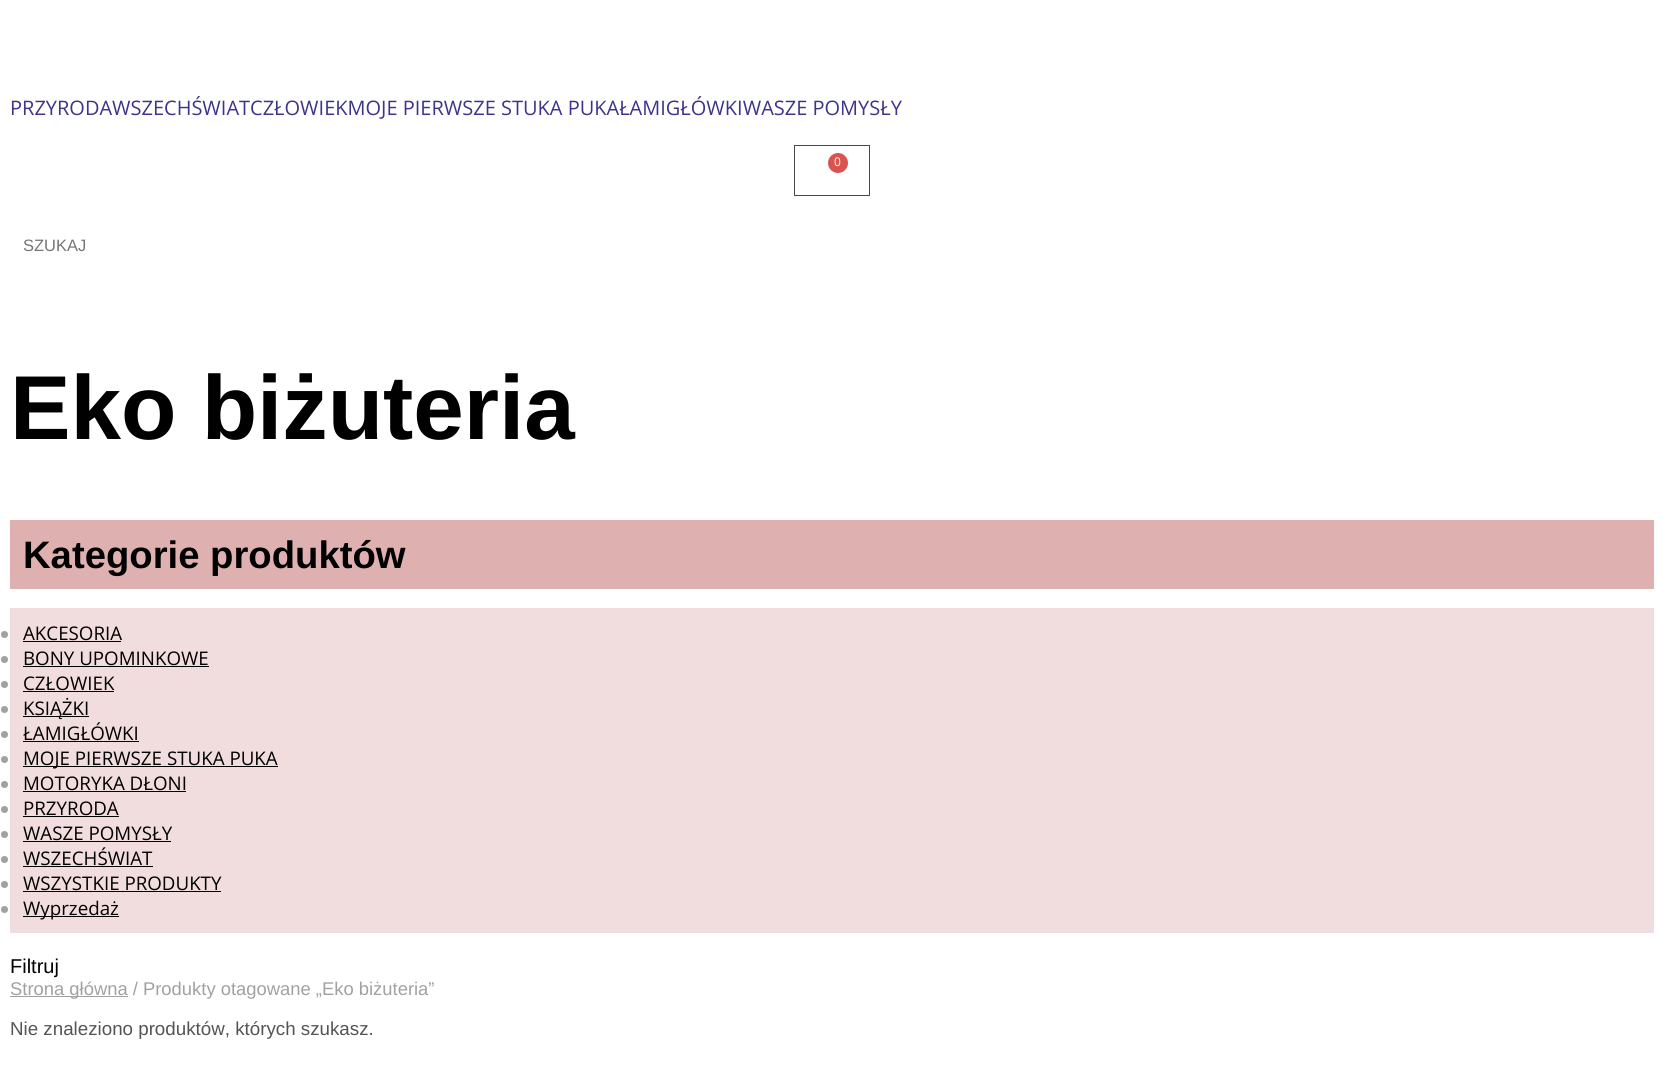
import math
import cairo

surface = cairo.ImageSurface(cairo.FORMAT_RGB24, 1663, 1070)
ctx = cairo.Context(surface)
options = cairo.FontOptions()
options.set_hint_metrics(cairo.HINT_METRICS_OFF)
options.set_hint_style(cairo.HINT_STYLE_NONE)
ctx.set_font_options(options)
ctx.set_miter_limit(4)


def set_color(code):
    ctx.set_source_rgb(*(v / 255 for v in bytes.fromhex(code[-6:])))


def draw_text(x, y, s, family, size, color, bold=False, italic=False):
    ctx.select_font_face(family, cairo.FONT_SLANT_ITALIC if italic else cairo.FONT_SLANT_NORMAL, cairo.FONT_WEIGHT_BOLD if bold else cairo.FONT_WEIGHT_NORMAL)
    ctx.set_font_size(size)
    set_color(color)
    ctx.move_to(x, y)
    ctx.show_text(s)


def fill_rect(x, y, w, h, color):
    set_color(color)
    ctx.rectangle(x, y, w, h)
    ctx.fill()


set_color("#ffffff")
ctx.paint()
draw_text(10, 115, "PRZYRODAWSZECHŚWIATCZŁOWIEKMOJE PIERWSZE STUKA PUKAŁAMIGŁÓWKIWASZE POMYSŁY", "Open Sans", 20, "#3d348b")
ctx.rectangle(794.5, 145.5, 75, 50)
set_color("#4d4848")
ctx.set_line_width(1)
ctx.stroke()
set_color("#d9534f")
ctx.arc(838, 163, 10, 0, 2 * math.pi)
ctx.fill()
draw_text(834, 166, "0", "Open Sans", 12, "#ffffff")
draw_text(23, 251, "SZUKAJ", "Liberation Sans", 16.5, "#757575")
draw_text(10, 439, "Eko biżuteria", "Liberation Sans", 90.75, "#000000", bold=True)
fill_rect(10, 520, 1644, 69, "#dfb0b0")
draw_text(23, 568, "Kategorie produktów", "Liberation Sans", 38.25, "#000000", bold=True)
fill_rect(10, 608, 1644, 325, "#f1dddd")
set_color("#a1a1a1")
ctx.new_path()
ctx.arc(4.5, 634.5, 3.5, 0, 2 * math.pi)
ctx.fill()
draw_text(23, 640, "AKCESORIA", "Open Sans", 18.75, "#000000")
fill_rect(23, 641, 98, 1, "#000000")
set_color("#a1a1a1")
ctx.new_path()
ctx.arc(4.5, 659.5, 3.5, 0, 2 * math.pi)
ctx.fill()
draw_text(23, 665, "BONY UPOMINKOWE", "Open Sans", 18.75, "#000000")
fill_rect(23, 666, 186, 1, "#000000")
set_color("#a1a1a1")
ctx.new_path()
ctx.arc(4.5, 684.5, 3.5, 0, 2 * math.pi)
ctx.fill()
draw_text(23, 690, "CZŁOWIEK", "Open Sans", 18.75, "#000000")
fill_rect(23, 691, 91, 1, "#000000")
set_color("#a1a1a1")
ctx.new_path()
ctx.arc(4.5, 709.5, 3.5, 0, 2 * math.pi)
ctx.fill()
fill_rect(23, 716, 66, 1, "#000000")
draw_text(23, 715, "KSIĄŻKI", "Open Sans", 18.75, "#000000")
set_color("#a1a1a1")
ctx.new_path()
ctx.arc(4.5, 734.5, 3.5, 0, 2 * math.pi)
ctx.fill()
draw_text(23, 740, "ŁAMIGŁÓWKI", "Open Sans", 18.75, "#000000")
fill_rect(23, 741, 116, 1, "#000000")
set_color("#a1a1a1")
ctx.new_path()
ctx.arc(4.5, 759.5, 3.5, 0, 2 * math.pi)
ctx.fill()
fill_rect(23, 766, 255, 1, "#000000")
draw_text(23, 765, "MOJE PIERWSZE STUKA PUKA", "Open Sans", 18.75, "#000000")
set_color("#a1a1a1")
ctx.new_path()
ctx.arc(4.5, 784.5, 3.5, 0, 2 * math.pi)
ctx.fill()
draw_text(23, 790, "MOTORYKA DŁONI", "Open Sans", 18.75, "#000000")
fill_rect(23, 791, 163, 1, "#000000")
set_color("#a1a1a1")
ctx.new_path()
ctx.arc(4.5, 809.5, 3.5, 0, 2 * math.pi)
ctx.fill()
draw_text(23, 815, "PRZYRODA", "Open Sans", 18.75, "#000000")
fill_rect(23, 816, 96, 1, "#000000")
set_color("#a1a1a1")
ctx.new_path()
ctx.arc(4.5, 834.5, 3.5, 0, 2 * math.pi)
ctx.fill()
draw_text(23, 840, "WASZE POMYSŁY", "Open Sans", 18.75, "#000000")
fill_rect(23, 841, 148, 1, "#000000")
set_color("#a1a1a1")
ctx.new_path()
ctx.arc(4.5, 859.5, 3.5, 0, 2 * math.pi)
ctx.fill()
draw_text(23, 865, "WSZECHŚWIAT", "Open Sans", 18.75, "#000000")
fill_rect(23, 866, 130, 1, "#000000")
set_color("#a1a1a1")
ctx.new_path()
ctx.arc(4.5, 884.5, 3.5, 0, 2 * math.pi)
ctx.fill()
draw_text(23, 890, "WSZYSTKIE PRODUKTY", "Open Sans", 18.75, "#000000")
fill_rect(23, 891, 198, 1, "#000000")
set_color("#a1a1a1")
ctx.new_path()
ctx.arc(4.5, 909.5, 3.5, 0, 2 * math.pi)
ctx.fill()
fill_rect(23, 916, 96, 1, "#000000")
draw_text(23, 915, "Wyprzedaż", "Open Sans", 18.75, "#000000")
draw_text(10, 973, "Filtruj", "Liberation Sans", 20, "#000000")
fill_rect(10, 996, 118, 1, "#a1a1a1")
draw_text(10, 995, "Strona główna / Produkty otagowane „Eko biżuteria”", "Liberation Sans", 18.4, "#a1a1a1")
draw_text(10, 1035, "Nie znaleziono produktów, których szukasz.", "Liberation Sans", 18.75, "#545454")
surface.write_to_png("output.png")
